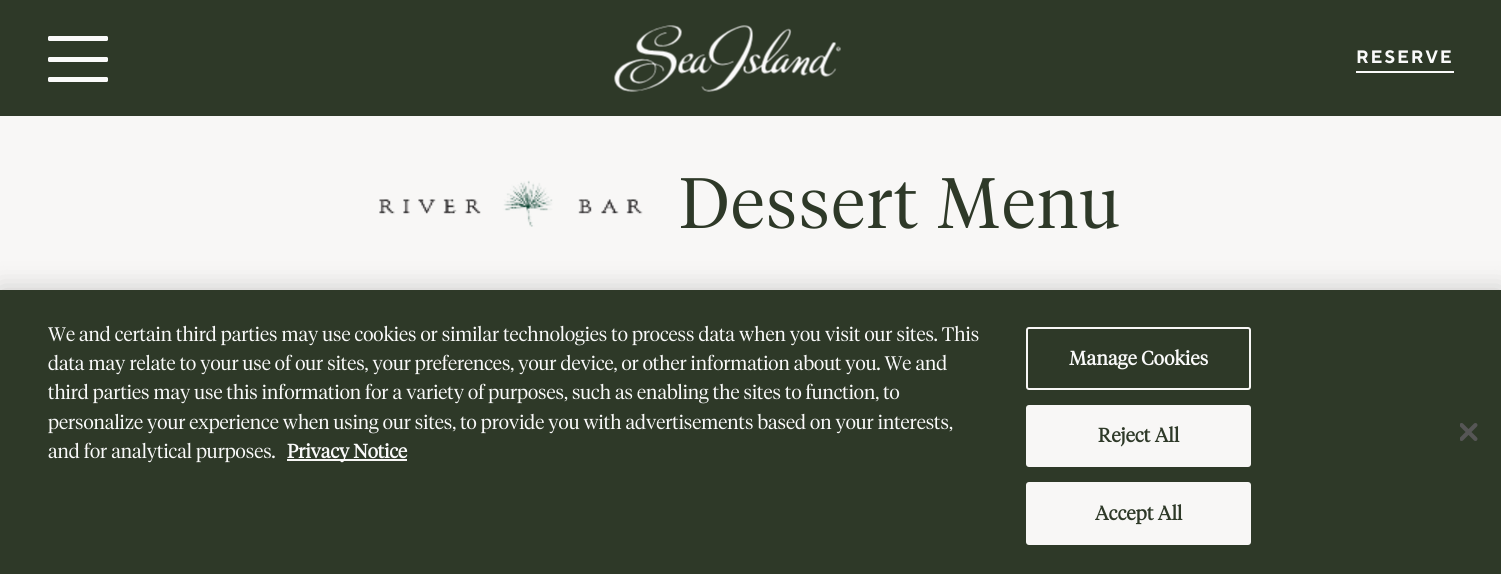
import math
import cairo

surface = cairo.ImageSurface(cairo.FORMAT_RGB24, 1501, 574)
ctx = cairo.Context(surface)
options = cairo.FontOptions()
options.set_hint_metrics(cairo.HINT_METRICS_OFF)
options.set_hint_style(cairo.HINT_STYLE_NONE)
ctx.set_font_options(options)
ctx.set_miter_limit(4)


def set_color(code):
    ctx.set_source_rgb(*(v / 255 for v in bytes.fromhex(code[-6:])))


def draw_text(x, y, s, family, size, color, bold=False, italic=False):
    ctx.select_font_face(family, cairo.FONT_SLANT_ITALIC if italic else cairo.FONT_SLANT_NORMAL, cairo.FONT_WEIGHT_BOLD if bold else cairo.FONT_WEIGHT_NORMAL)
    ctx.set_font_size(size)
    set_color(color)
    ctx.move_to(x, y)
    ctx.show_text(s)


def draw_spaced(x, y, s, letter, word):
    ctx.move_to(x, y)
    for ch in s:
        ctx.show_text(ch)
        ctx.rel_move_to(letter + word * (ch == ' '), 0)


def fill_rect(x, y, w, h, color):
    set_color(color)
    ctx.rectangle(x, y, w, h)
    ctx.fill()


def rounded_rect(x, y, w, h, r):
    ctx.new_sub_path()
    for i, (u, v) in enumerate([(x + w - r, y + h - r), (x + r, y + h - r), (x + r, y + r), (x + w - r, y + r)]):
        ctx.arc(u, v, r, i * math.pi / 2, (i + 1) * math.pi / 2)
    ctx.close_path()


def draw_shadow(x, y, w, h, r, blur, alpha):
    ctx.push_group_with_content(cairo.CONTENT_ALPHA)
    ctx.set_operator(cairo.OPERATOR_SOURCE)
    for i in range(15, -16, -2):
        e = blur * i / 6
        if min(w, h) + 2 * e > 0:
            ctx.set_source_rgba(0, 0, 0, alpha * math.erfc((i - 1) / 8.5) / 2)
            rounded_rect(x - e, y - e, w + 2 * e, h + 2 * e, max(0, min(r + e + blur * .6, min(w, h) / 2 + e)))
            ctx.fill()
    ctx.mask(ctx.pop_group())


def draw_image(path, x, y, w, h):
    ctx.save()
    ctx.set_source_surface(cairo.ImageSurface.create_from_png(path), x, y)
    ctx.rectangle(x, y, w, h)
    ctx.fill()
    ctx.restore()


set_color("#f8f7f6")
ctx.paint()
fill_rect(0, 0, 1501, 116, "#2e3928")
set_color("#fafafa")
rounded_rect(48, 36, 60, 5, 1.5)
ctx.fill()
rounded_rect(48, 57, 60, 5, 1.5)
ctx.fill()
rounded_rect(48, 77, 60, 5, 1.5)
ctx.fill()
draw_image("assets/img1.png", 614, 25, 227, 67)
ctx.select_font_face("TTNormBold", cairo.FONT_SLANT_NORMAL, cairo.FONT_WEIGHT_BOLD)
ctx.set_font_size(18)
draw_spaced(1356, 63, "RESERVE", 1.75, 0)
fill_rect(1356, 71, 98, 2, "#fafafa")
draw_image("assets/img2.png", 379, 180, 264, 47)
ctx.select_font_face("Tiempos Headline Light")
ctx.set_font_size(71)
set_color("#2e3928")
draw_spaced(679, 228, "Dessert Menu", 2.1, 0)
set_color("#000000")
draw_shadow(0, 290, 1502, 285, 0, 13.5, 0.2)
fill_rect(0, 290, 1501, 284, "#2e3928")
draw_text(48, 341, "We and certain third parties may use cookies or similar technologies to process data when you visit our sites. This", "Tiempos Headline Light", 19.5, "#fafafa")
draw_text(48, 370, "data may relate to your use of our sites, your preferences, your device, or other information about you. We and", "Tiempos Headline Light", 19.5, "#fafafa")
draw_text(48, 399, "third parties may use this information for a variety of purposes, such as enabling the sites to function, to", "Tiempos Headline Light", 19.5, "#fafafa")
draw_text(48, 429, "personalize your experience when using our sites, to provide you with advertisements based on your interests,", "Tiempos Headline Light", 19.5, "#fafafa")
draw_text(48, 458, "and for analytical purposes.", "Tiempos Headline Light", 19.5, "#fafafa")
fill_rect(287, 459, 120, 2, "#f8f7f6")
draw_text(287, 458, "Privacy Notice", "Tiempos Headline", 19.5, "#fafafa", bold=True)
rounded_rect(1027, 328, 223, 61, 2)
set_color("#f8f7f6")
ctx.stroke()
set_color("#fafafa")
draw_spaced(1069, 365, "Manage Cookies", 0.25, 0)
set_color("#f8f7f6")
rounded_rect(1027, 406, 223, 60, 2)
ctx.fill_preserve()
ctx.stroke()
set_color("#2e3928")
draw_spaced(1098, 442, "Reject All", 0.25, 0)
set_color("#f8f7f6")
rounded_rect(1027, 483, 223, 61, 2)
ctx.fill_preserve()
ctx.stroke()
set_color("#2e3928")
draw_spaced(1095, 520, "Accept All", 0.25, 0)
draw_image("assets/img3.png", 1460, 423, 18, 18)
surface.write_to_png("output.png")
